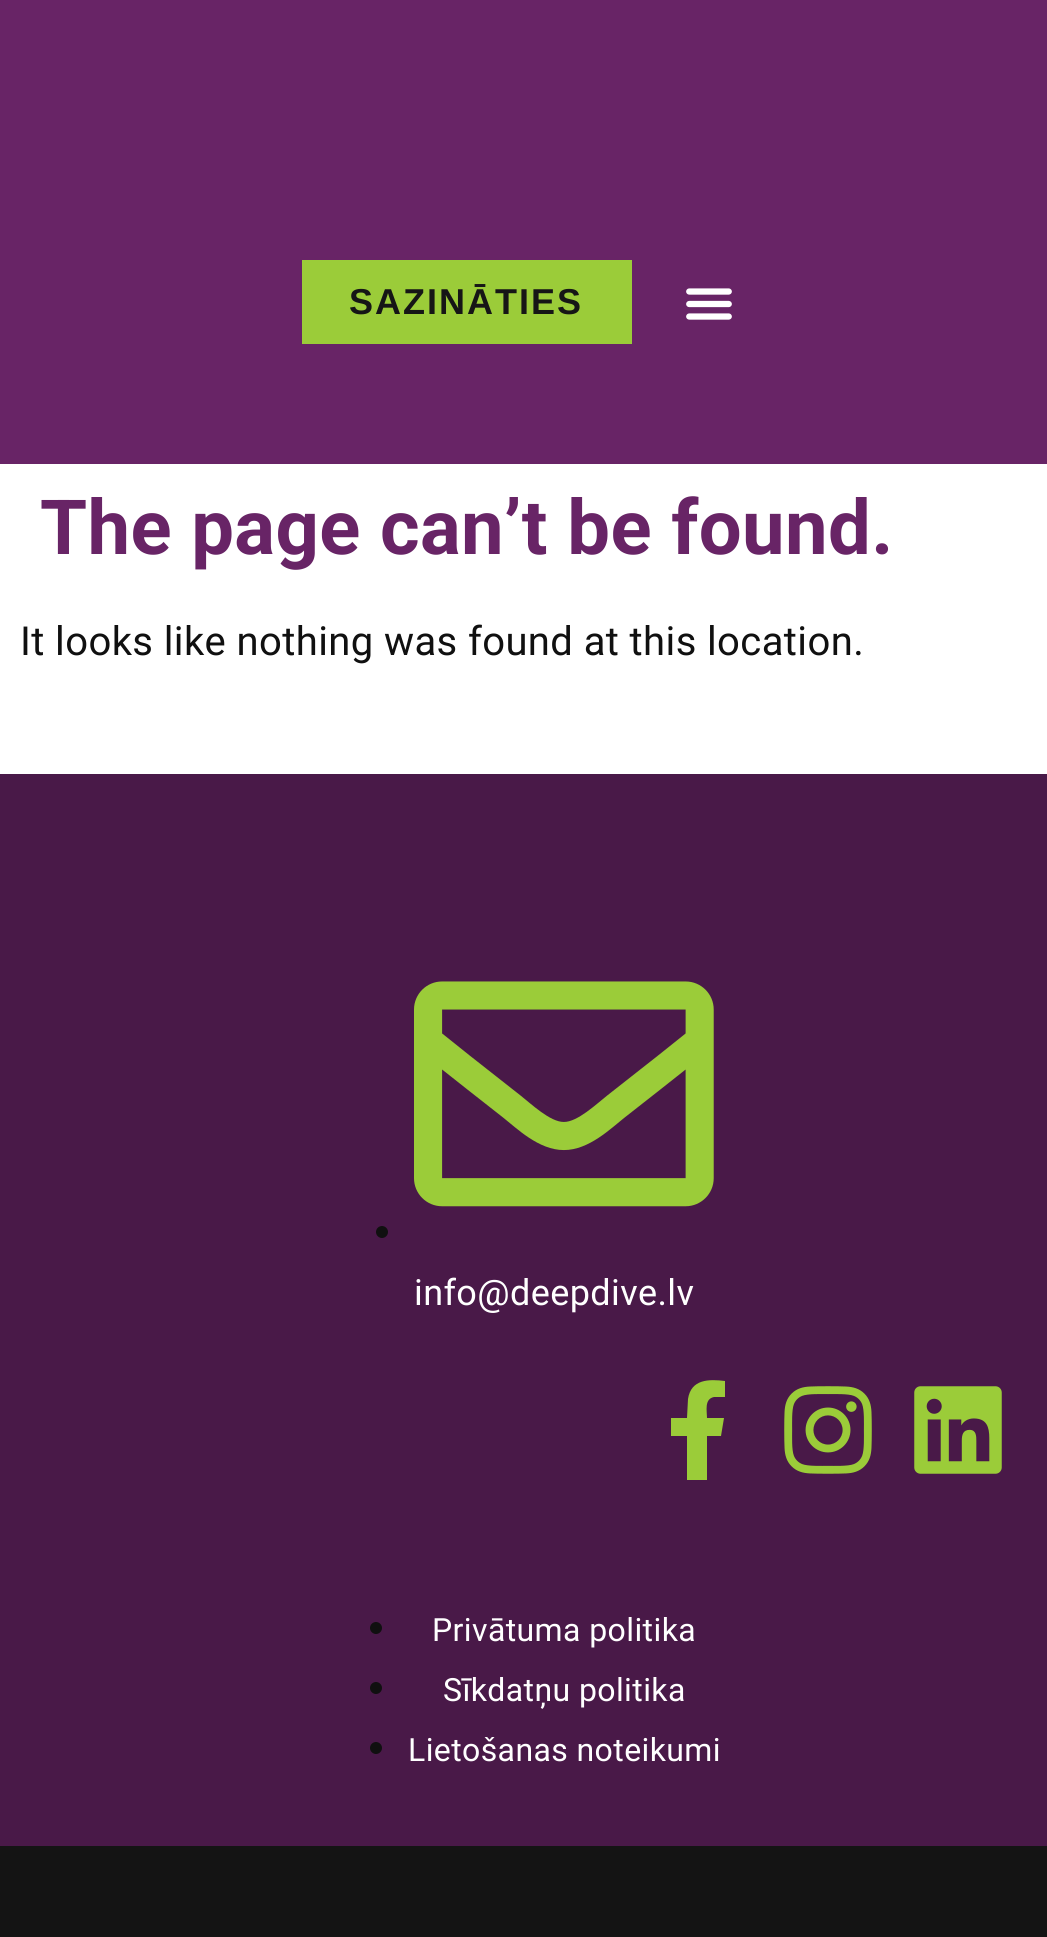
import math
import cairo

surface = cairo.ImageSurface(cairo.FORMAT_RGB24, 1047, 1937)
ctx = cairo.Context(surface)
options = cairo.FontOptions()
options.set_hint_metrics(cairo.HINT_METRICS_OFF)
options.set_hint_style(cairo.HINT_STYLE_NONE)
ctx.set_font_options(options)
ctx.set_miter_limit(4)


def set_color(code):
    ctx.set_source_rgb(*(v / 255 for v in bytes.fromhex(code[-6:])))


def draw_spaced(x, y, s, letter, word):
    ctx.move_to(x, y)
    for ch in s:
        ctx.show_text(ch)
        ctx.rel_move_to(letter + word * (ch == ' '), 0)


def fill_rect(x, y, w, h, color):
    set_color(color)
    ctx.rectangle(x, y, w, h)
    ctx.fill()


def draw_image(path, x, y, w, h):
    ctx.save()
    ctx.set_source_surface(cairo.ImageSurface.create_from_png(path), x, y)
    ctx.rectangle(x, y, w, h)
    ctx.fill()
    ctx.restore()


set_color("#ffffff")
ctx.paint()
fill_rect(0, 0, 1047, 464, "#682466")
fill_rect(302, 260, 330, 84, "#9bcc39")
ctx.select_font_face("Liberation Sans", cairo.FONT_SLANT_NORMAL, cairo.FONT_WEIGHT_BOLD)
ctx.set_font_size(36)
set_color("#161616")
draw_spaced(349, 314, "SAZINĀTIES", 2, 0)
draw_image("assets/img1.png", 686, 288, 46, 32)
ctx.select_font_face("Roboto", cairo.FONT_SLANT_NORMAL, cairo.FONT_WEIGHT_BOLD)
ctx.set_font_size(76)
set_color("#682466")
draw_spaced(40, 554, "The page can’t be found.", 0.4, 0)
ctx.select_font_face("Roboto")
ctx.set_font_size(40)
set_color("#101010")
draw_spaced(20, 655, "It looks like nothing was found at this location.", 0.4, 0)
fill_rect(0, 774, 1047, 1072, "#491948")
set_color("#101010")
ctx.new_path()
ctx.arc(382, 1232, 6, 0, 2 * math.pi)
ctx.fill()
draw_image("assets/img2.png", 414, 981, 300, 226)
ctx.set_font_size(36)
set_color("#ffffff")
draw_spaced(414, 1305, "info@deepdive.lv", 0.4, 0)
set_color("#9bcc39")
ctx.new_path()
ctx.move_to(721, 1436)
ctx.line_to(724, 1418)
ctx.line_to(707, 1418)
ctx.curve_to(707, 1411, 704, 1399, 714, 1397)
ctx.line_to(725, 1397)
ctx.line_to(725, 1381)
ctx.curve_to(709, 1379, 691, 1379, 688, 1399)
ctx.line_to(687, 1418)
ctx.line_to(671, 1418)
ctx.line_to(671, 1436)
ctx.line_to(687, 1436)
ctx.line_to(687, 1480)
ctx.line_to(707, 1480)
ctx.line_to(707, 1436)
ctx.close_path()
ctx.fill()
draw_image("assets/img3.png", 784, 1386, 88, 88)
draw_image("assets/img4.png", 914, 1386, 88, 88)
set_color("#101010")
ctx.arc(376, 1628, 6, 0, 2 * math.pi)
ctx.fill()
ctx.set_font_size(32)
set_color("#ffffff")
draw_spaced(432, 1641, "Privātuma politika", 0.4, 0)
set_color("#101010")
ctx.new_path()
ctx.arc(376, 1688, 6, 0, 2 * math.pi)
ctx.fill()
set_color("#ffffff")
draw_spaced(443, 1701, "Sīkdatņu politika", 0.4, 0)
set_color("#101010")
ctx.new_path()
ctx.arc(376, 1748, 6, 0, 2 * math.pi)
ctx.fill()
set_color("#ffffff")
draw_spaced(408, 1761, "Lietošanas noteikumi", 0.4, 0)
fill_rect(0, 1846, 1047, 91, "#141414")
surface.write_to_png("output.png")
